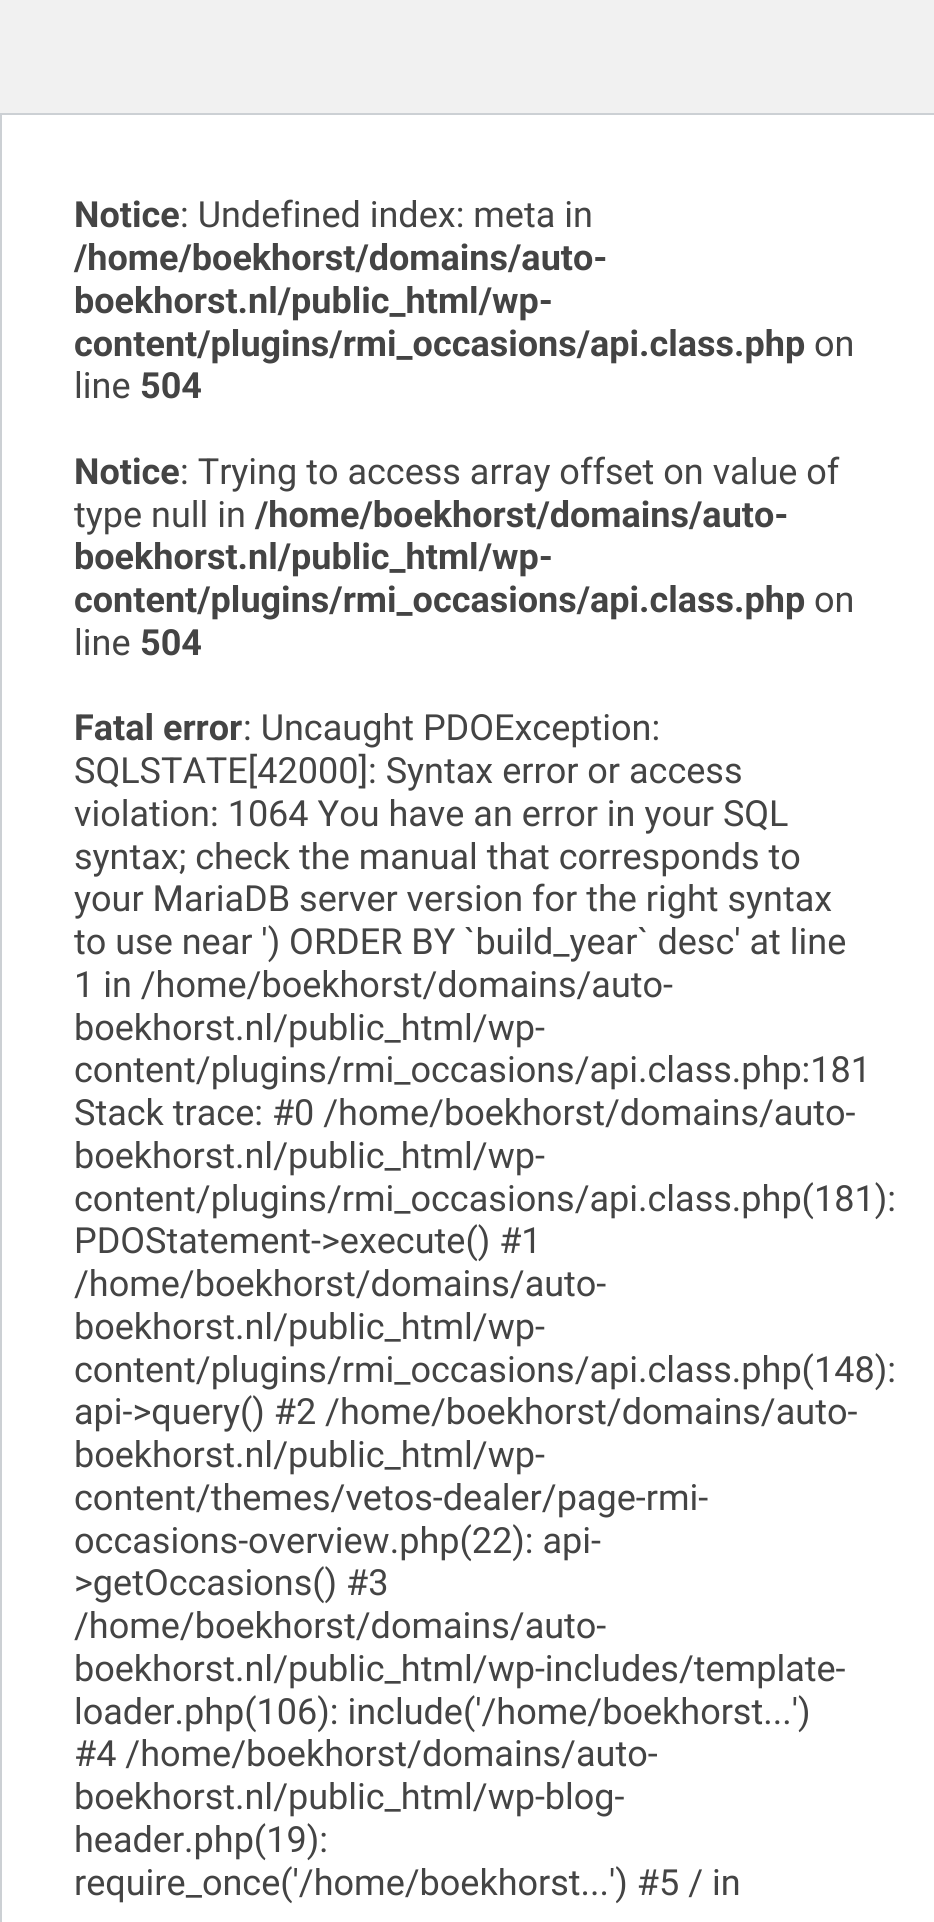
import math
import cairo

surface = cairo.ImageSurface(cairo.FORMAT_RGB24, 934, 1922)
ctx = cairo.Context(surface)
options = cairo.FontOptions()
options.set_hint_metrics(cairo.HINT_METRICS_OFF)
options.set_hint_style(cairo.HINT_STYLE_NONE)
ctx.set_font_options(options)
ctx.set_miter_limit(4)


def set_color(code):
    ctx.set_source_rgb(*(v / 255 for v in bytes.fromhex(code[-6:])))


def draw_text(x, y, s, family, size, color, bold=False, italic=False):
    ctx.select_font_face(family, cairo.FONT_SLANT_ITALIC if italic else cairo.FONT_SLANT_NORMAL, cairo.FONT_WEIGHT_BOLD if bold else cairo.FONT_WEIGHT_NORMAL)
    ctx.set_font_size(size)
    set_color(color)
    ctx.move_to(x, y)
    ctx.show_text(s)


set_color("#f1f1f1")
ctx.paint()
set_color("#ffffff")
ctx.rectangle(1, 114, 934, 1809)
ctx.fill_preserve()
set_color("#ccd0d4")
ctx.stroke()
draw_text(74, 227, "Notice", "Roboto", 36, "#444444", bold=True)
draw_text(180, 227, ": Undefined index: meta in", "Roboto", 36, "#444444")
draw_text(74, 270, "/home/boekhorst/domains/auto-", "Roboto", 36, "#444444", bold=True)
draw_text(74, 313, "boekhorst.nl/public_html/wp-", "Roboto", 36, "#444444", bold=True)
draw_text(74, 356, "content/plugins/rmi_occasions/api.class.php", "Roboto", 36, "#444444", bold=True)
draw_text(814, 356, "on", "Roboto", 36, "#444444")
draw_text(74, 398, "line", "Roboto", 36, "#444444")
draw_text(140, 398, "504", "Roboto", 36, "#444444", bold=True)
draw_text(74, 484, "Notice", "Roboto", 36, "#444444", bold=True)
draw_text(180, 484, ": Trying to access array offset on value of", "Roboto", 36, "#444444")
draw_text(74, 527, "type null in", "Roboto", 36, "#444444")
draw_text(255, 527, "/home/boekhorst/domains/auto-", "Roboto", 36, "#444444", bold=True)
draw_text(74, 569, "boekhorst.nl/public_html/wp-", "Roboto", 36, "#444444", bold=True)
draw_text(74, 612, "content/plugins/rmi_occasions/api.class.php", "Roboto", 36, "#444444", bold=True)
draw_text(814, 612, "on", "Roboto", 36, "#444444")
draw_text(74, 655, "line", "Roboto", 36, "#444444")
draw_text(140, 655, "504", "Roboto", 36, "#444444", bold=True)
draw_text(74, 740, "Fatal error", "Roboto", 36, "#444444", bold=True)
draw_text(243, 740, ": Uncaught PDOException:", "Roboto", 36, "#444444")
draw_text(74, 783, "SQLSTATE[42000]: Syntax error or access", "Roboto", 36, "#444444")
draw_text(74, 826, "violation: 1064 You have an error in your SQL", "Roboto", 36, "#444444")
draw_text(74, 869, "syntax; check the manual that corresponds to", "Roboto", 36, "#444444")
draw_text(74, 911, "your MariaDB server version for the right syntax", "Roboto", 36, "#444444")
draw_text(74, 954, "to use near ') ORDER BY `build_year` desc' at line", "Roboto", 36, "#444444")
draw_text(74, 997, "1 in /home/boekhorst/domains/auto-", "Roboto", 36, "#444444")
draw_text(74, 1040, "boekhorst.nl/public_html/wp-", "Roboto", 36, "#444444")
draw_text(74, 1082, "content/plugins/rmi_occasions/api.class.php:181", "Roboto", 36, "#444444")
draw_text(74, 1125, "Stack trace: #0 /home/boekhorst/domains/auto-", "Roboto", 36, "#444444")
draw_text(74, 1168, "boekhorst.nl/public_html/wp-", "Roboto", 36, "#444444")
draw_text(74, 1211, "content/plugins/rmi_occasions/api.class.php(181):", "Roboto", 36, "#444444")
draw_text(74, 1253, "PDOStatement->execute() #1", "Roboto", 36, "#444444")
draw_text(74, 1296, "/home/boekhorst/domains/auto-", "Roboto", 36, "#444444")
draw_text(74, 1339, "boekhorst.nl/public_html/wp-", "Roboto", 36, "#444444")
draw_text(74, 1382, "content/plugins/rmi_occasions/api.class.php(148):", "Roboto", 36, "#444444")
draw_text(74, 1424, "api->query() #2 /home/boekhorst/domains/auto-", "Roboto", 36, "#444444")
draw_text(74, 1467, "boekhorst.nl/public_html/wp-", "Roboto", 36, "#444444")
draw_text(74, 1510, "content/themes/vetos-dealer/page-rmi-", "Roboto", 36, "#444444")
draw_text(74, 1553, "occasions-overview.php(22): api-", "Roboto", 36, "#444444")
draw_text(74, 1595, ">getOccasions() #3", "Roboto", 36, "#444444")
draw_text(74, 1638, "/home/boekhorst/domains/auto-", "Roboto", 36, "#444444")
draw_text(74, 1681, "boekhorst.nl/public_html/wp-includes/template-", "Roboto", 36, "#444444")
draw_text(74, 1724, "loader.php(106): include('/home/boekhorst...')", "Roboto", 36, "#444444")
draw_text(74, 1766, "#4 /home/boekhorst/domains/auto-", "Roboto", 36, "#444444")
draw_text(74, 1809, "boekhorst.nl/public_html/wp-blog-", "Roboto", 36, "#444444")
draw_text(74, 1852, "header.php(19):", "Roboto", 36, "#444444")
draw_text(74, 1895, "require_once('/home/boekhorst...') #5 / in", "Roboto", 36, "#444444")
surface.write_to_png("output.png")
